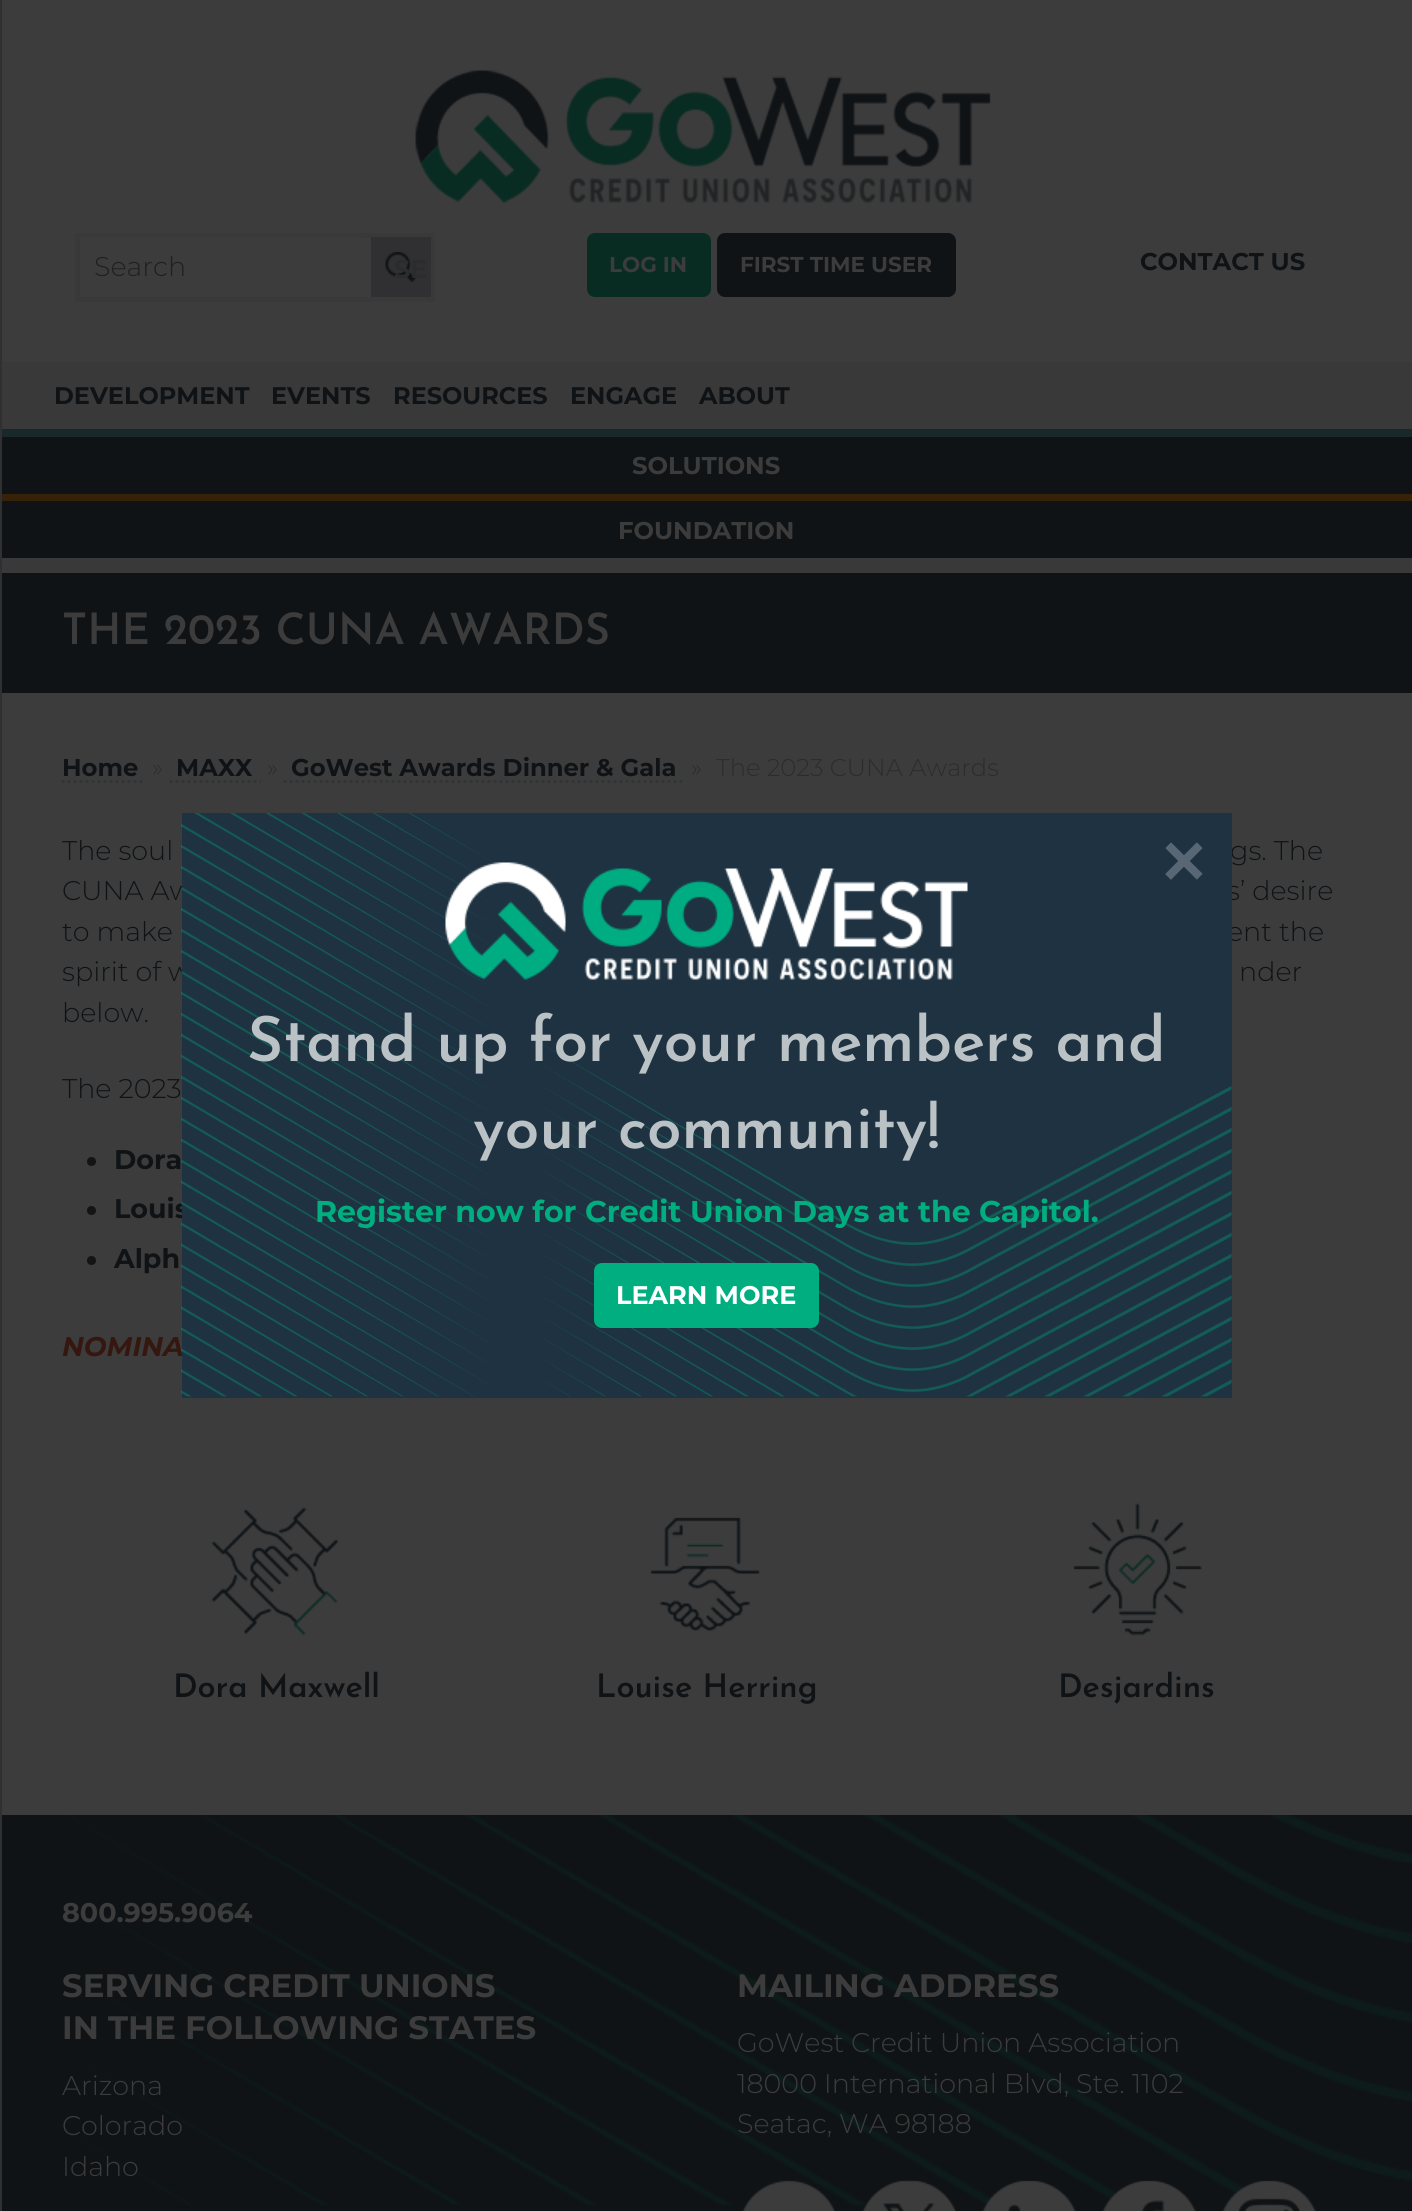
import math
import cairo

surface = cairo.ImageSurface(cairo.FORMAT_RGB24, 1412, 2211)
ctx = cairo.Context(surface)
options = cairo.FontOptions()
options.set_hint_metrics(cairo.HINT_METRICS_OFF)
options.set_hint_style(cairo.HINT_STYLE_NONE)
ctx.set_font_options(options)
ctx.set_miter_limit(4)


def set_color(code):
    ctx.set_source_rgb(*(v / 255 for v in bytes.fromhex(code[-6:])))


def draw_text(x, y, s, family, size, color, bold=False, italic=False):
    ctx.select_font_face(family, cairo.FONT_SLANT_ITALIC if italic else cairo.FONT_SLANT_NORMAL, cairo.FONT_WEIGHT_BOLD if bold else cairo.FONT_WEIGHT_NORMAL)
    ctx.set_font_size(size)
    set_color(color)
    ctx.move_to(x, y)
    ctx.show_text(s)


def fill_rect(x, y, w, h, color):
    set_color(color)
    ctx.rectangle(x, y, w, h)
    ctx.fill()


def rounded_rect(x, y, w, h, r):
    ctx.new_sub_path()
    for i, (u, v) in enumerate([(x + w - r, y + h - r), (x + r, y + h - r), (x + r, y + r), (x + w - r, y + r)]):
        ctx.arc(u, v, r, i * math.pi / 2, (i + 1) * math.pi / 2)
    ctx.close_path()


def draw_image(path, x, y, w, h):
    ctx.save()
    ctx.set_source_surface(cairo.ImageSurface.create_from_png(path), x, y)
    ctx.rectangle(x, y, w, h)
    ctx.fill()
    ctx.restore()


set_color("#3c3c3c")
ctx.paint()
fill_rect(0, 0, 2, 2211, "#303032")
draw_image("assets/img1.png", 415, 70, 576, 133)
ctx.rectangle(77.5, 235.5, 355, 64)
set_color("#393939")
ctx.set_line_width(5)
ctx.stroke()
fill_rect(80, 237, 276, 1, "#3c3c3c")
draw_text(94, 276, "Search", "Montserrat Light", 27, "#202020")
fill_rect(371, 237, 60, 60, "#303032")
draw_image("assets/img2.png", 385, 252, 31, 30)
draw_text(394, 278, "SE", "Montserrat", 25.5, "#2b2c2e", bold=True)
set_color("#092c22")
rounded_rect(587, 233, 124, 64, 8)
ctx.fill()
draw_text(609, 272, "LOG IN", "Montserrat", 21.5, "#3c3c3c", bold=True)
set_color("#0f1316")
rounded_rect(717, 233, 239, 64, 8)
ctx.fill()
draw_text(740, 272, "FIRST TIME USER", "Montserrat", 21.5, "#3c3c3c", bold=True)
draw_text(1140, 270, "CONTACT US", "Montserrat", 24.25, "#0f1316", bold=True)
fill_rect(2, 362, 1410, 67, "#393939")
draw_text(54, 404, "DEVELOPMENT", "Montserrat", 24, "#0f1316", bold=True)
draw_text(271, 404, "EVENTS", "Montserrat", 24, "#0f1316", bold=True)
draw_text(393, 404, "RESOURCES", "Montserrat", 24, "#0f1316", bold=True)
draw_text(570, 404, "ENGAGE", "Montserrat", 24, "#0f1316", bold=True)
draw_text(699, 404, "ABOUT", "Montserrat", 24, "#0f1316", bold=True)
fill_rect(2, 437, 1410, 57, "#0f1316")
fill_rect(2, 429, 1410, 8, "#19282a")
draw_text(632, 474, "SOLUTIONS", "Montserrat", 24.25, "#3c3c3c", bold=True)
fill_rect(2, 501, 1410, 57, "#0f1316")
fill_rect(2, 494, 1410, 7, "#372209")
draw_text(618, 539, "FOUNDATION", "Montserrat", 24.25, "#3c3c3c", bold=True)
fill_rect(2, 573, 1410, 120, "#0f1316")
fill_rect(2, 558, 1410, 15, "#393939")
draw_text(62, 644, "THE 2023 CUNA AWARDS", "Josefin Sans Thin", 43.25, "#3c3c3c")
ctx.new_path()
ctx.move_to(61.5, 781.5)
ctx.line_to(145.5, 781.5)
set_color("#333434")
ctx.set_line_width(3)
ctx.set_dash([3, 3])
ctx.stroke()
draw_text(62, 776, "Home", "Montserrat", 24.25, "#0f1316", bold=True)
draw_text(152, 776, "»", "Montserrat Light", 24.25, "#2b2c2e")
ctx.new_path()
ctx.move_to(169.5, 781.5)
ctx.line_to(261, 781.5)
set_color("#333434")
ctx.stroke()
draw_text(176, 776, "MAXX", "Montserrat", 24.25, "#0f1316", bold=True)
draw_text(267, 776, "»", "Montserrat Light", 24.25, "#2b2c2e")
ctx.new_path()
ctx.move_to(283.5, 781.5)
ctx.line_to(685.5, 781.5)
set_color("#333434")
ctx.stroke()
draw_text(291, 776, "GoWest Awards Dinner & Gala", "Montserrat", 24.25, "#0f1316", bold=True)
draw_text(691, 776, "»", "Montserrat Light", 24.25, "#2b2c2e")
draw_text(716, 776, "The 2023 CUNA Awards", "Montserrat Light", 24.25, "#2b2c2e")
draw_text(62, 860, "The soul", "Montserrat Light", 27, "#0f1316")
draw_text(1230, 860, "gs. The", "Montserrat Light", 27, "#0f1316")
draw_text(62, 900, "CUNA Aw", "Montserrat Light", 27, "#0f1316")
draw_text(1227, 900, "s’ desire", "Montserrat Light", 27, "#0f1316")
draw_text(62, 941, "to make", "Montserrat Light", 27, "#0f1316")
draw_text(1227, 941, "ent the", "Montserrat Light", 27, "#0f1316")
draw_text(62, 981, "spirit of w", "Montserrat Light", 27, "#0f1316")
draw_text(1239, 981, "nder", "Montserrat Light", 27, "#0f1316")
draw_text(62, 1022, "below.", "Montserrat Light", 27, "#0f1316")
draw_text(62, 1098, "The 2023", "Montserrat Light", 27, "#0f1316")
set_color("#141416")
ctx.new_path()
ctx.arc(91.5, 1161.5, 4.5, 0, 2 * math.pi)
ctx.fill()
draw_text(114, 1169, "Dora", "Montserrat", 27, "#0f1316", bold=True)
set_color("#141416")
ctx.new_path()
ctx.arc(91.5, 1210.5, 4.5, 0, 2 * math.pi)
ctx.fill()
draw_text(114, 1218, "Louis", "Montserrat", 27, "#0f1316", bold=True)
set_color("#141416")
ctx.new_path()
ctx.arc(91.5, 1260.5, 4.5, 0, 2 * math.pi)
ctx.fill()
draw_text(114, 1268, "Alph", "Montserrat", 27, "#0f1316", bold=True)
draw_text(62, 1356, "NOMINA", "Montserrat", 27, "#35170f", bold=True, italic=True)
draw_image("assets/img3.png", 211, 1507, 127, 129)
draw_text(173, 1697, "Dora Maxwell", "Josefin Sans Thin", 32.4, "#0f1316")
draw_image("assets/img4.png", 650, 1517, 110, 114)
draw_text(596, 1697, "Louise Herring", "Josefin Sans Thin", 32.4, "#0f1316")
draw_image("assets/img5.png", 1073, 1503, 129, 133)
draw_text(1058, 1697, "Desjardins", "Josefin Sans Thin", 32.4, "#0f1316")
fill_rect(2, 1815, 1410, 396, "#0f1316")
draw_image("assets/img6.png", 50, 1815, 1362, 392)
draw_text(62, 1922, "800.995.9064", "Montserrat", 27, "#3c3c3c", bold=True)
draw_text(62, 1997, "SERVING CREDIT UNIONS", "Montserrat", 32.4, "#3c3c3c", bold=True)
draw_text(62, 2039, "IN THE FOLLOWING STATES", "Montserrat", 32.4, "#3c3c3c", bold=True)
draw_text(62, 2095, "Arizona", "Montserrat Light", 27, "#3c3c3c")
draw_text(62, 2135, "Colorado", "Montserrat Light", 27, "#3c3c3c")
draw_text(62, 2176, "Idaho", "Montserrat Light", 27, "#3c3c3c")
draw_text(737, 1997, "MAILING ADDRESS", "Montserrat", 32.4, "#3c3c3c", bold=True)
draw_text(737, 2052, "GoWest Credit Union Association", "Montserrat Light", 27, "#3c3c3c")
draw_text(737, 2093, "18000 International Blvd, Ste. 1102", "Montserrat Light", 27, "#3c3c3c")
draw_text(737, 2133, "Seatac, WA 98188", "Montserrat Light", 27, "#3c3c3c")
draw_image("assets/img7.png", 742, 2180, 94, 31)
draw_image("assets/img8.png", 862, 2179, 94, 32)
draw_image("assets/img9.png", 982, 2180, 94, 31)
draw_image("assets/img10.png", 1102, 2180, 94, 31)
draw_image("assets/img11.png", 1222, 2180, 94, 31)
fill_rect(182, 813, 1050, 585, "#1e3241")
draw_image("assets/img12.png", 181, 813, 1051, 584)
draw_image("assets/img13.png", 445, 862, 523, 118)
draw_text(1162, 886, "×", "Liberation Sans", 75, "#586773", bold=True)
draw_text(247, 1061, "Stand up for your members and", "Josefin Sans Thin", 62.1, "#bbc2c6")
draw_text(473, 1148, "your community!", "Josefin Sans Thin", 62.1, "#bbc2c6")
draw_text(315, 1222, "Register now for Credit Union Days at the Capitol.", "Montserrat", 30, "#00ae80", bold=True)
rounded_rect(594, 1263, 225, 65, 8)
ctx.fill()
draw_text(616, 1304, "LEARN MORE", "Montserrat", 25.5, "#ffffff", bold=True)
surface.write_to_png("output.png")
